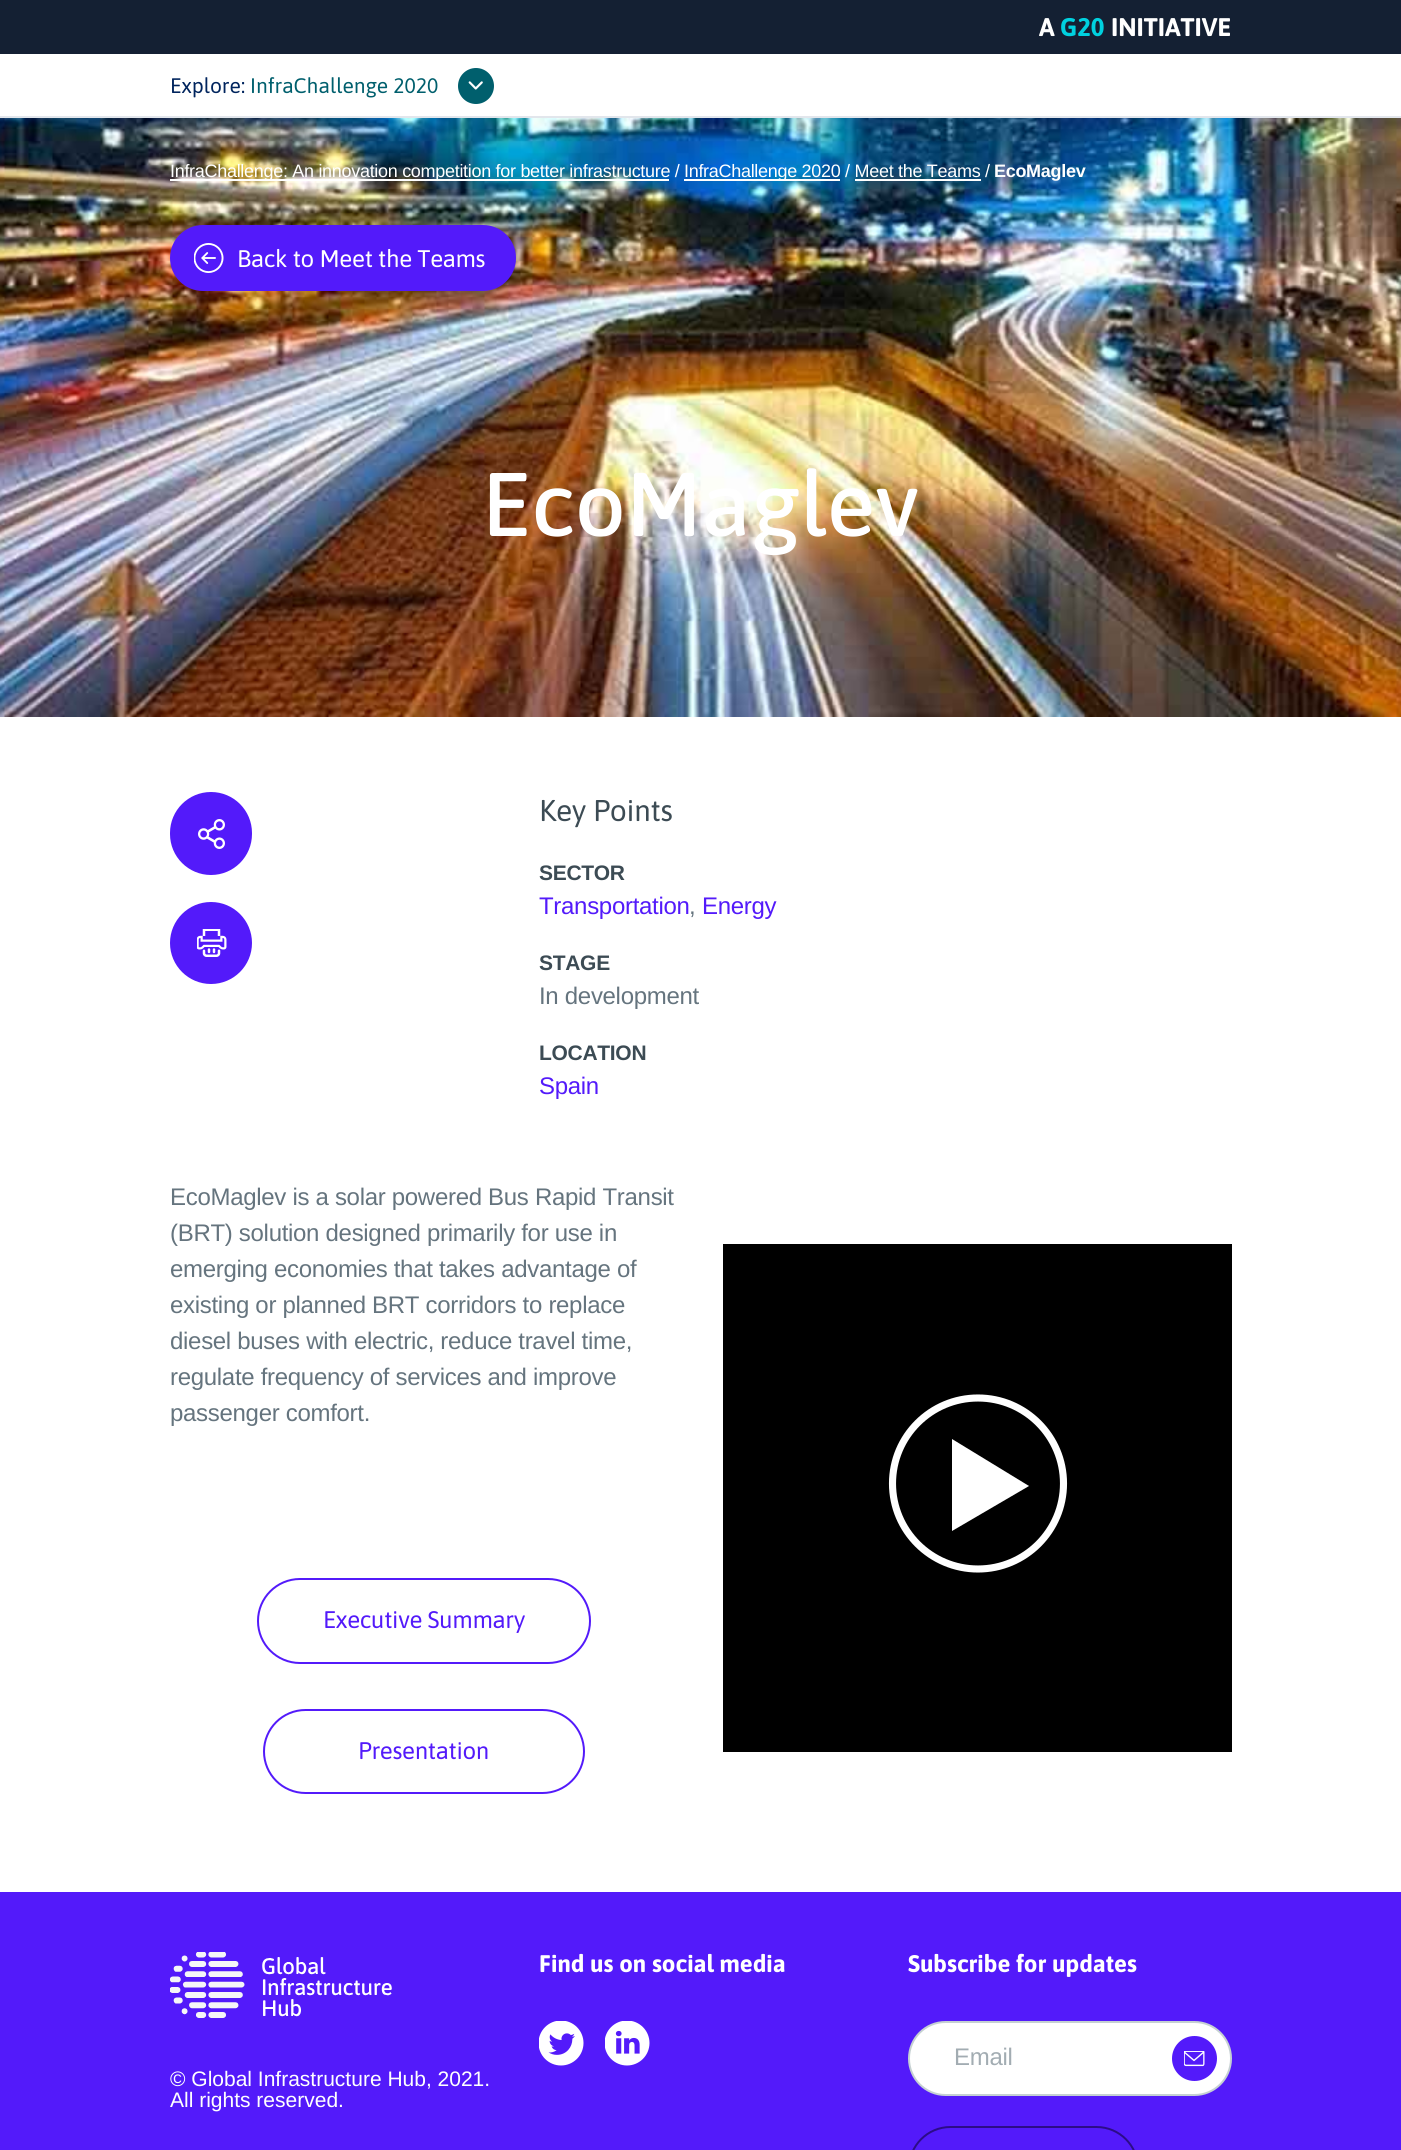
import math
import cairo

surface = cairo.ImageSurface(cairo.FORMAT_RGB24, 1401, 2150)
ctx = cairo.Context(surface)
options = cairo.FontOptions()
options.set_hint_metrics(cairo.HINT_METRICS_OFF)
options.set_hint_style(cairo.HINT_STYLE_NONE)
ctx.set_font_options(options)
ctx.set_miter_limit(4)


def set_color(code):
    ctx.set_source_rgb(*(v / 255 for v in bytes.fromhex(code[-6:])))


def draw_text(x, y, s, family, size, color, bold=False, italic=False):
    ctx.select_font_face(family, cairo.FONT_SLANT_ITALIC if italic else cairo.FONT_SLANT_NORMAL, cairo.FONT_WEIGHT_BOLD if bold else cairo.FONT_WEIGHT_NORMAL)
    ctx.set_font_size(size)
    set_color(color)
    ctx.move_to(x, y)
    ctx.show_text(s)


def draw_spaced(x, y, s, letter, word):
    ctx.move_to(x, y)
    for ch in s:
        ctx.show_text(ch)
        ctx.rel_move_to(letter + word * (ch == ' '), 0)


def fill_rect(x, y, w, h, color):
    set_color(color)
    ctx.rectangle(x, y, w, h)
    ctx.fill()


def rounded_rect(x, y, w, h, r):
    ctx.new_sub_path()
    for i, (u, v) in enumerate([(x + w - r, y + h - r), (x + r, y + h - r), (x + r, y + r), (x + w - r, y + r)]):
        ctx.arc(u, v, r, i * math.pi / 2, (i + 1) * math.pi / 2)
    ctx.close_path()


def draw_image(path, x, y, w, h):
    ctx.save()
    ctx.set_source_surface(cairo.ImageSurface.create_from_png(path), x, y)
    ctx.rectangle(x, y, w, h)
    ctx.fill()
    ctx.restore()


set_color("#ffffff")
ctx.paint()
fill_rect(0, 0, 1401, 54, "#142033")
draw_text(1039, 36, "A", "Asap", 25.5, "#ffffff", bold=True)
draw_text(1060, 36, "G20", "Asap", 25.5, "#00d1df", bold=True)
draw_text(1111, 36, "INITIATIVE", "Asap", 25.5, "#ffffff", bold=True)
fill_rect(0, 116, 1401, 2, "#e2e6ec")
draw_text(170, 93, "Explore:", "Asap", 21, "#00245d")
draw_text(250, 93, "InfraChallenge 2020", "Asap", 21, "#005f6d")
ctx.new_path()
ctx.arc(476, 86, 18, 0, 2 * math.pi)
ctx.fill()
draw_image("assets/img1.png", 468, 81, 15, 9)
draw_image("assets/img3.png", 0, 118, 1401, 599)
fill_rect(170, 179, 499, 2, "#ffffff")
ctx.select_font_face("Liberation Sans")
ctx.set_font_size(18)
draw_spaced(170, 177, "InfraChallenge: An innovation competition for better infrastructure /", -0.3, 0)
fill_rect(684, 179, 156, 2, "#ffffff")
draw_spaced(684, 177, "InfraChallenge 2020 / Meet the Teams /", -0.3, 0)
ctx.select_font_face("Liberation Sans", cairo.FONT_SLANT_NORMAL, cairo.FONT_WEIGHT_BOLD)
draw_spaced(994, 177, "EcoMaglev", -0.3, 0)
fill_rect(855, 179, 126, 2, "#ffffff")
set_color("#531afa")
rounded_rect(170, 225, 346, 66, 33)
ctx.fill()
draw_image("assets/img2.png", 194, 243, 30, 30)
ctx.select_font_face("Asap")
ctx.set_font_size(24)
set_color("#ffffff")
draw_spaced(237, 267, "Back to Meet the Teams", -0.3, 0)
draw_text(482, 536, "EcoMaglev", "Asap Medium", 90, "#ffffff")
set_color("#531afa")
rounded_rect(170, 792, 82, 83, 41)
ctx.fill()
draw_image("assets/img4.png", 198, 819, 27, 30)
ctx.arc(211, 943, 41, 0, 2 * math.pi)
ctx.fill()
draw_image("assets/img5.png", 197, 929, 30, 28)
ctx.select_font_face("Asap")
ctx.set_font_size(30)
set_color("#3c4b54")
draw_spaced(539, 821, "Key Points", -0.3, 0)
ctx.select_font_face("Liberation Sans", cairo.FONT_SLANT_NORMAL, cairo.FONT_WEIGHT_BOLD)
ctx.set_font_size(21)
draw_spaced(539, 880, "SECTOR", -0.3, 0)
ctx.select_font_face("Liberation Sans")
ctx.set_font_size(24)
set_color("#531afa")
draw_spaced(539, 914, "Transportation", -0.3, 0)
set_color("#65747e")
draw_spaced(689, 914, ",", -0.3, 0)
set_color("#531afa")
draw_spaced(702, 914, "Energy", -0.3, 0)
ctx.select_font_face("Liberation Sans", cairo.FONT_SLANT_NORMAL, cairo.FONT_WEIGHT_BOLD)
ctx.set_font_size(21)
set_color("#3c4b54")
draw_spaced(539, 970, "STAGE", -0.3, 0)
ctx.select_font_face("Liberation Sans")
ctx.set_font_size(24)
set_color("#65747e")
draw_spaced(539, 1004, "In development", -0.3, 0)
ctx.select_font_face("Liberation Sans", cairo.FONT_SLANT_NORMAL, cairo.FONT_WEIGHT_BOLD)
ctx.set_font_size(21)
set_color("#3c4b54")
draw_spaced(539, 1060, "LOCATION", -0.3, 0)
ctx.select_font_face("Liberation Sans")
ctx.set_font_size(24)
set_color("#531afa")
draw_spaced(539, 1094, "Spain", -0.3, 0)
set_color("#65747e")
draw_spaced(170, 1205, "EcoMaglev is a solar powered Bus Rapid Transit", -0.3, 0)
draw_spaced(170, 1241, "(BRT) solution designed primarily for use in", -0.3, 0)
draw_spaced(170, 1277, "emerging economies that takes advantage of", -0.3, 0)
draw_spaced(170, 1313, "existing or planned BRT corridors to replace", -0.3, 0)
draw_spaced(170, 1349, "diesel buses with electric, reduce travel time,", -0.3, 0)
draw_spaced(170, 1385, "regulate frequency of services and improve", -0.3, 0)
draw_spaced(170, 1421, "passenger comfort.", -0.3, 0)
rounded_rect(258, 1579, 332, 84, 42)
set_color("#531afa")
ctx.stroke()
ctx.select_font_face("Asap")
draw_spaced(323, 1628, "Executive Summary", -0.3, 0)
rounded_rect(264, 1710, 320, 83, 41.5)
ctx.stroke()
draw_spaced(358, 1759, "Presentation", -0.3, 0)
fill_rect(723, 1244, 509, 508, "#000000")
ctx.new_path()
ctx.arc(978, 1483.5, 85.5, 0, 2 * math.pi)
set_color("#ffffff")
ctx.set_line_width(7.1)
ctx.stroke()
ctx.set_fill_rule(cairo.FILL_RULE_EVEN_ODD)
ctx.new_path()
ctx.move_to(952, 1439)
ctx.line_to(1029, 1486)
ctx.line_to(952, 1531)
ctx.close_path()
ctx.fill()
fill_rect(0, 1892, 1401, 258, "#531afa")
draw_text(539, 1972, "Find us on social media", "Asap", 24, "#ffffff", bold=True)
draw_image("assets/img6.png", 539, 2021, 45, 45)
draw_image("assets/img7.png", 605, 2021, 45, 45)
draw_text(908, 1972, "Subscribe for updates", "Asap", 24, "#ffffff", bold=True)
rounded_rect(909, 2022, 322, 73, 36.5)
ctx.fill_preserve()
set_color("#c5d0d2")
ctx.set_line_width(2)
ctx.stroke()
ctx.select_font_face("Liberation Sans")
set_color("#a2acb2")
draw_spaced(954, 2065, "Email", -0.3, 0)
set_color("#531afa")
ctx.new_path()
ctx.arc(1194.5, 2058.5, 22.5, 0, 2 * math.pi)
ctx.fill()
draw_image("assets/img8.png", 1184, 2051, 21, 16)
rounded_rect(909, 2127, 229, 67, 41.5)
set_color("#2c0c88")
ctx.stroke()
draw_image("assets/img9.png", 170, 1952, 222, 66)
draw_text(170, 2086, "© Global Infrastructure Hub, 2021.", "Liberation Sans", 21, "#ffffff")
draw_text(170, 2107, "All rights reserved.", "Liberation Sans", 21, "#ffffff")
surface.write_to_png("output.png")
